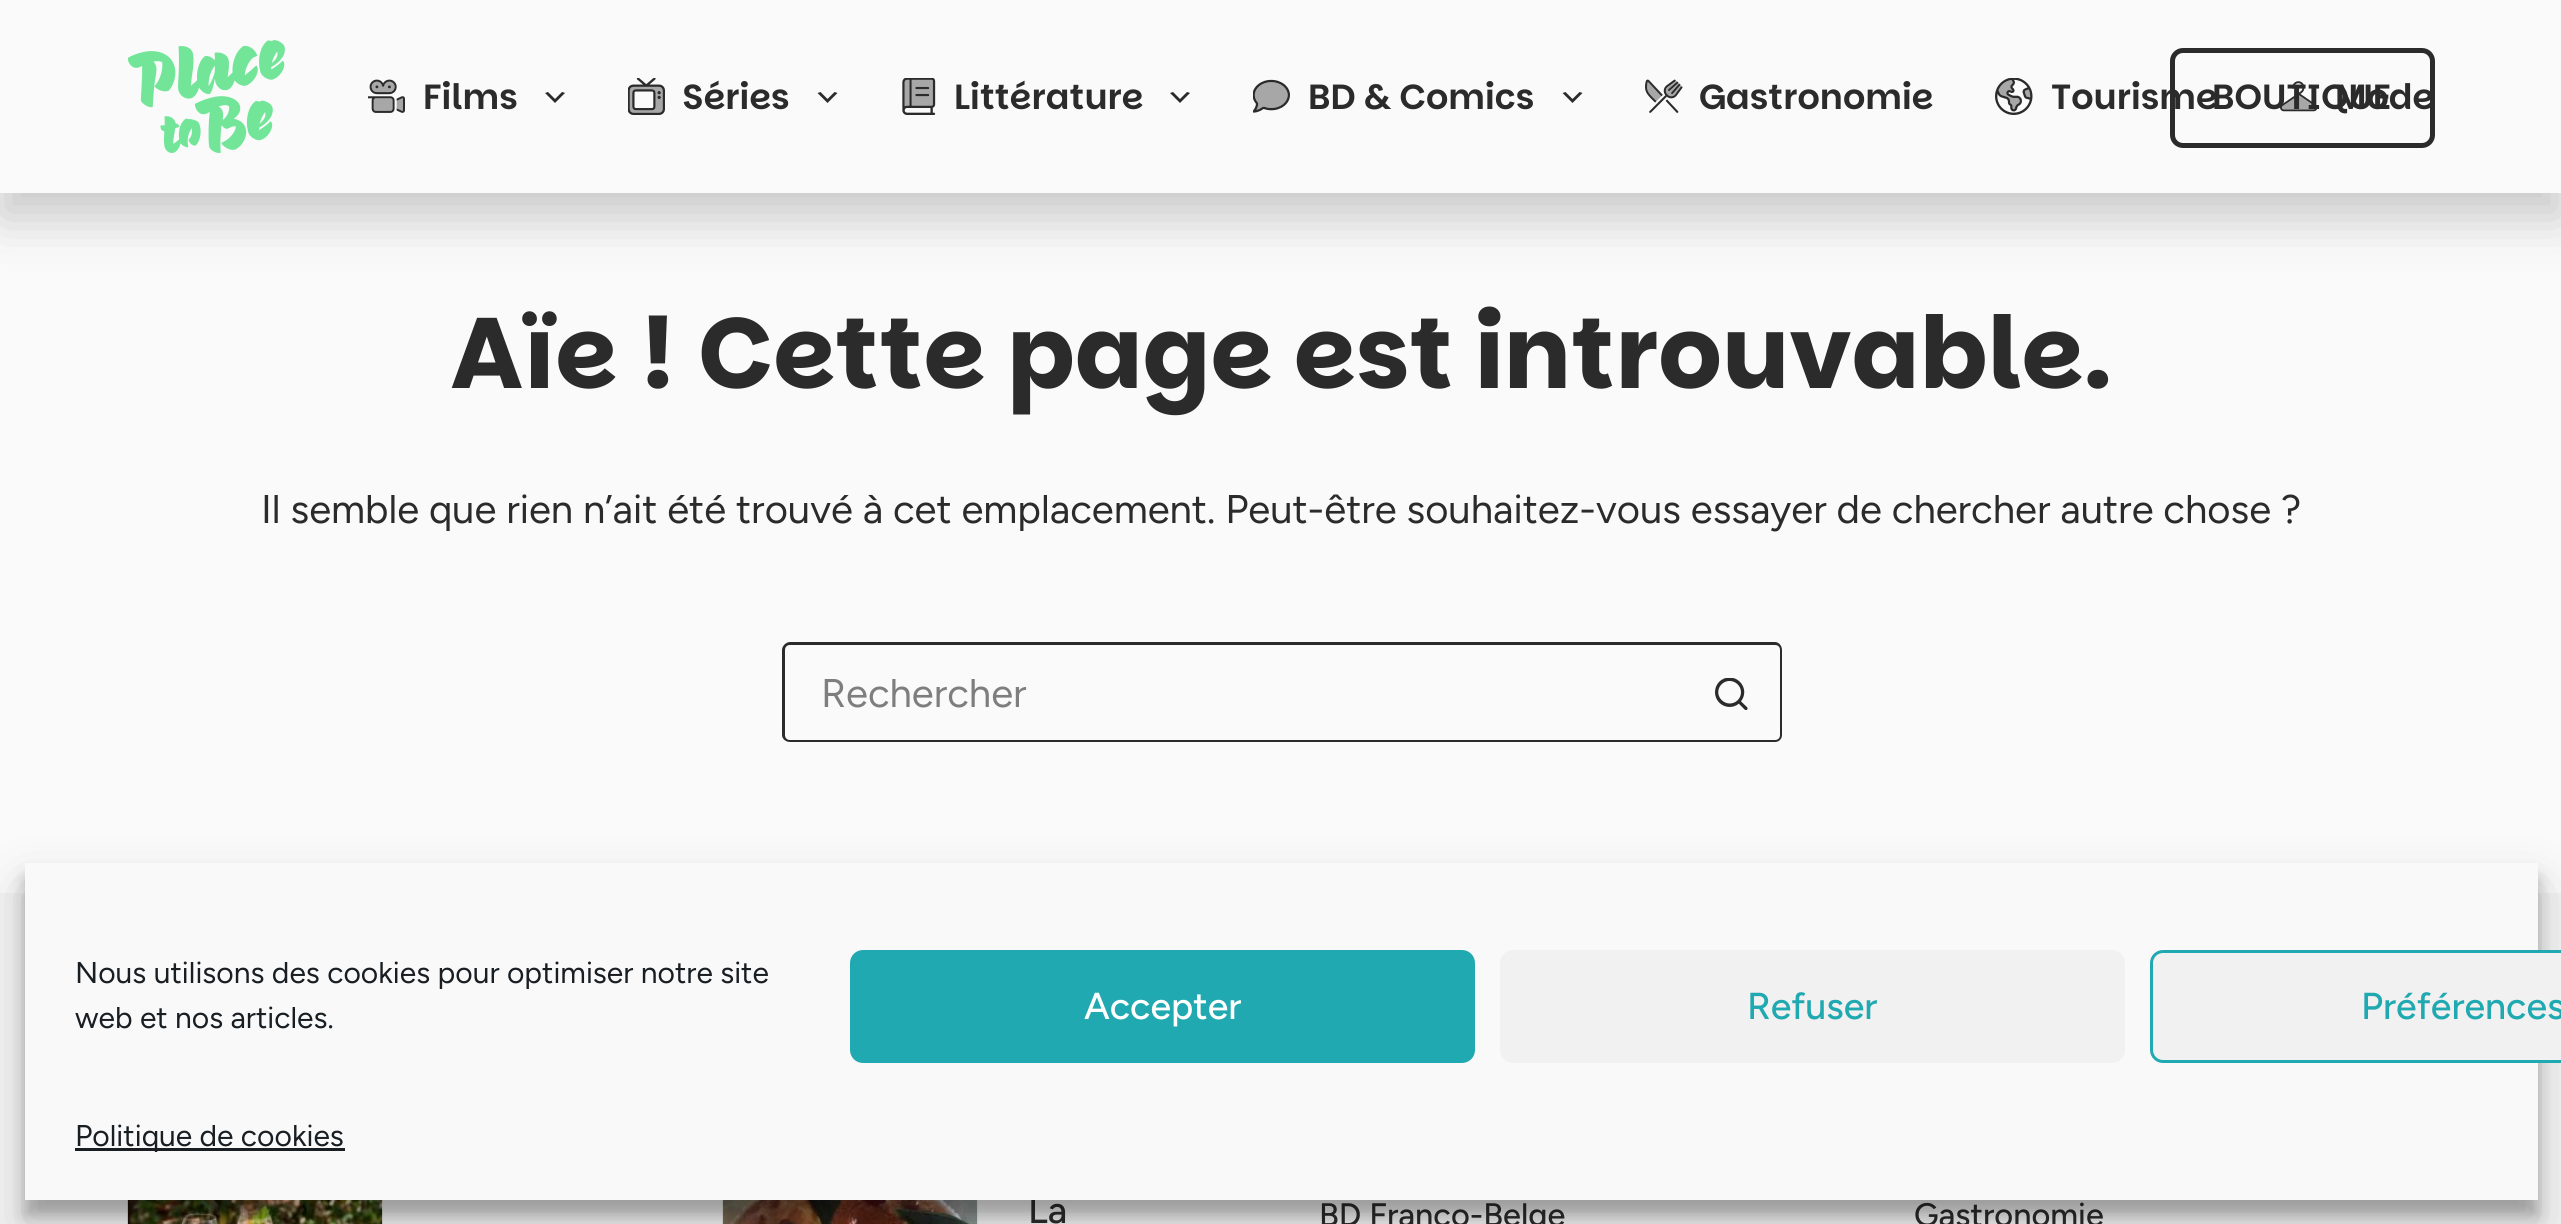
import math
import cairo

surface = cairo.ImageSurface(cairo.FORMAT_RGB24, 2561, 1224)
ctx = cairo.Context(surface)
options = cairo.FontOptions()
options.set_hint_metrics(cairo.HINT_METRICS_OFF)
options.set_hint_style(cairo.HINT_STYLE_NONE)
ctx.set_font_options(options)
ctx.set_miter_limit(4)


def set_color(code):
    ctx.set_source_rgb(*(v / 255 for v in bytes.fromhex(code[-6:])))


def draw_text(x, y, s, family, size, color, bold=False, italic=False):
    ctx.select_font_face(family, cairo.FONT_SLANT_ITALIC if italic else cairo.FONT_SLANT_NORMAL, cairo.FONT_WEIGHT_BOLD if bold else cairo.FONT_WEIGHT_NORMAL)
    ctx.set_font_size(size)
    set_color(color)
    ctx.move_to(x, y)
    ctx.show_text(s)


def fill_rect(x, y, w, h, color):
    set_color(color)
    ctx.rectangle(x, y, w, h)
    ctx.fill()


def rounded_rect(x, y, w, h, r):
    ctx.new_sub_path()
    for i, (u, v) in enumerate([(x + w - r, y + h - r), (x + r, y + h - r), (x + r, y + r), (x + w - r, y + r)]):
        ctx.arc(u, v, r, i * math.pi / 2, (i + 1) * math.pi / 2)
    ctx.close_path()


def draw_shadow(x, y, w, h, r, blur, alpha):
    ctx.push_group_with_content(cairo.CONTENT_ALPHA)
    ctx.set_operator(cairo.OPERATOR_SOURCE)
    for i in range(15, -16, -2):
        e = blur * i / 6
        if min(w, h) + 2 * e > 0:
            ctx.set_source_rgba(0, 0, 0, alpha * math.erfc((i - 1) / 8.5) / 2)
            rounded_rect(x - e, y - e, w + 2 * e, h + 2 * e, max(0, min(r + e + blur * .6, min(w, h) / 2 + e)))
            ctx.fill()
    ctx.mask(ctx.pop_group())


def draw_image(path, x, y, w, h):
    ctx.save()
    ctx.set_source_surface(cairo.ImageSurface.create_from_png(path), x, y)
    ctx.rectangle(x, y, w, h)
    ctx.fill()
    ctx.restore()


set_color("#fafafa")
ctx.paint()
set_color("#000000")
draw_shadow(0, 25, 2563, 193, 0, 25, 0.2)
fill_rect(0, 0, 2561, 193, "#fafafa")
draw_image("assets/img1.png", 128, 40, 157, 113)
draw_image("assets/img2.png", 368, 79, 37, 34)
draw_text(423, 109, "Films", "Parkinsans SemiBold", 35, "#2b2b2b")
ctx.new_path()
ctx.move_to(548, 92)
ctx.line_to(555, 99)
ctx.line_to(562, 92)
ctx.line_to(565, 93)
ctx.line_to(555, 103)
ctx.line_to(545, 93)
ctx.close_path()
ctx.fill()
draw_image("assets/img3.png", 628, 78, 37, 37)
draw_text(682, 109, "Séries", "Parkinsans SemiBold", 35, "#2b2b2b")
ctx.new_path()
ctx.move_to(820.5, 92)
ctx.line_to(827.5, 99)
ctx.line_to(834.5, 92)
ctx.line_to(837.5, 93)
ctx.line_to(827.5, 103)
ctx.line_to(817.5, 93)
ctx.close_path()
ctx.fill()
draw_image("assets/img4.png", 902, 78, 34, 37)
draw_text(954, 109, "Littérature", "Parkinsans SemiBold", 35, "#2b2b2b")
ctx.new_path()
ctx.move_to(1173, 92)
ctx.line_to(1180, 99)
ctx.line_to(1187, 92)
ctx.line_to(1190, 93)
ctx.line_to(1180, 103)
ctx.line_to(1170, 93)
ctx.close_path()
ctx.fill()
draw_image("assets/img5.png", 1253, 79, 37, 34)
draw_text(1308, 109, "BD & Comics", "Parkinsans SemiBold", 35, "#2b2b2b")
ctx.new_path()
ctx.move_to(1565.5, 92)
ctx.line_to(1572.5, 99)
ctx.line_to(1579.5, 92)
ctx.line_to(1582.5, 93)
ctx.line_to(1572.5, 103)
ctx.line_to(1562.5, 93)
ctx.close_path()
ctx.fill()
draw_image("assets/img6.png", 1645, 79, 38, 34)
draw_text(1699, 109, "Gastronomie", "Parkinsans SemiBold", 35, "#2b2b2b")
draw_image("assets/img7.png", 1995, 78, 38, 37)
rounded_rect(2172.5, 50.5, 260, 95, 10.5)
ctx.set_line_width(5)
ctx.stroke()
draw_text(2212, 109, "BOUTIQUE", "Parkinsans SemiBold", 35, "#2b2b2b")
draw_text(2051, 109, "Tourisme", "Parkinsans SemiBold", 35, "#2b2b2b")
draw_image("assets/img8.png", 2280, 81, 38, 31)
draw_text(2335, 109, "Mode", "Parkinsans SemiBold", 35, "#2b2b2b")
draw_text(450, 388, "Aïe ! Cette page est introuvable.", "Parkinsans", 100, "#2b2b2b", bold=True)
draw_text(261, 523, "Il semble que rien n’ait été trouvé à cet emplacement. Peut-être souhaitez-vous essayer de chercher autre chose ?", "Figtree", 40, "#2b2b2b")
ctx.set_fill_rule(cairo.FILL_RULE_EVEN_ODD)
ctx.new_path()
ctx.move_to(790, 642)
ctx.line_to(1682, 642)
ctx.line_to(1682, 742)
ctx.line_to(790, 742)
ctx.curve_to(786, 742, 782, 739, 782, 735)
ctx.line_to(782, 650)
ctx.curve_to(782, 646, 786, 642, 790, 642)
ctx.close_path()
ctx.move_to(790, 645)
ctx.line_to(1682, 645)
ctx.line_to(1682, 740)
ctx.line_to(790, 740)
ctx.curve_to(787, 740, 785, 738, 785, 735)
ctx.line_to(785, 650)
ctx.curve_to(785, 647, 787, 645, 790, 645)
ctx.close_path()
ctx.fill()
draw_text(821, 707, "Rechercher", "Figtree", 40, "#7e7e7e")
set_color("#2b2b2b")
ctx.new_path()
ctx.move_to(1682, 642)
ctx.line_to(1775, 642)
ctx.curve_to(1779, 642, 1782, 646, 1782, 650)
ctx.line_to(1782, 735)
ctx.curve_to(1782, 739, 1779, 742, 1775, 742)
ctx.line_to(1682, 742)
ctx.close_path()
ctx.move_to(1682, 645)
ctx.line_to(1775, 645)
ctx.curve_to(1778, 645, 1780, 647, 1780, 650)
ctx.line_to(1780, 735)
ctx.curve_to(1780, 738, 1778, 740, 1775, 740)
ctx.line_to(1682, 740)
ctx.close_path()
ctx.fill()
draw_image("assets/img9.png", 1715, 678, 33, 32)
fill_rect(0, 893, 2561, 331, "#f3f3f3")
draw_image("assets/img10.png", 127, 1200, 256, 24)
draw_image("assets/img11.png", 722, 1200, 256, 24)
draw_text(1028, 1223, "La", "Figtree Medium", 37.5, "#2b2b2b")
draw_text(1319, 1226, "BD Franco-Belge", "Figtree Medium", 32.5, "#2b2b2b")
draw_text(1914, 1226, "Gastronomie", "Figtree Medium", 32.5, "#2b2b2b")
set_color("#000000")
draw_shadow(25, 878, 2513, 337, 0, 7.5, 0.23)
draw_shadow(25, 888, 2513, 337, 0, 25, 0.19)
fill_rect(25, 863, 2513, 337, "#f9f9f9")
draw_text(75, 983, "Nous utilisons des cookies pour optimiser notre site", "Figtree", 30, "#191e23")
draw_text(75, 1028, "web et nos articles.", "Figtree", 30, "#191e23")
set_color("#20a9b0")
rounded_rect(851.5, 951.5, 622, 110, 11.5)
ctx.fill_preserve()
ctx.set_line_width(3)
ctx.stroke()
draw_text(1084, 1019, "Accepter", "Figtree Medium", 37.5, "#ffffff")
set_color("#f1f1f1")
rounded_rect(1500, 950, 625, 113, 13)
ctx.fill()
draw_text(1747, 1019, "Refuser", "Figtree Medium", 37.5, "#20a9b0")
set_color("#f1f1f1")
rounded_rect(2151.5, 951.5, 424, 110, 11.5)
ctx.fill_preserve()
set_color("#20a9b0")
ctx.stroke()
draw_text(2361, 1019, "Préférences", "Figtree Medium", 37.5, "#20a9b0")
fill_rect(75, 1148, 270, 3, "#191e23")
draw_text(75, 1146, "Politique de cookies", "Figtree", 30, "#191e23")
surface.write_to_png("output.png")
